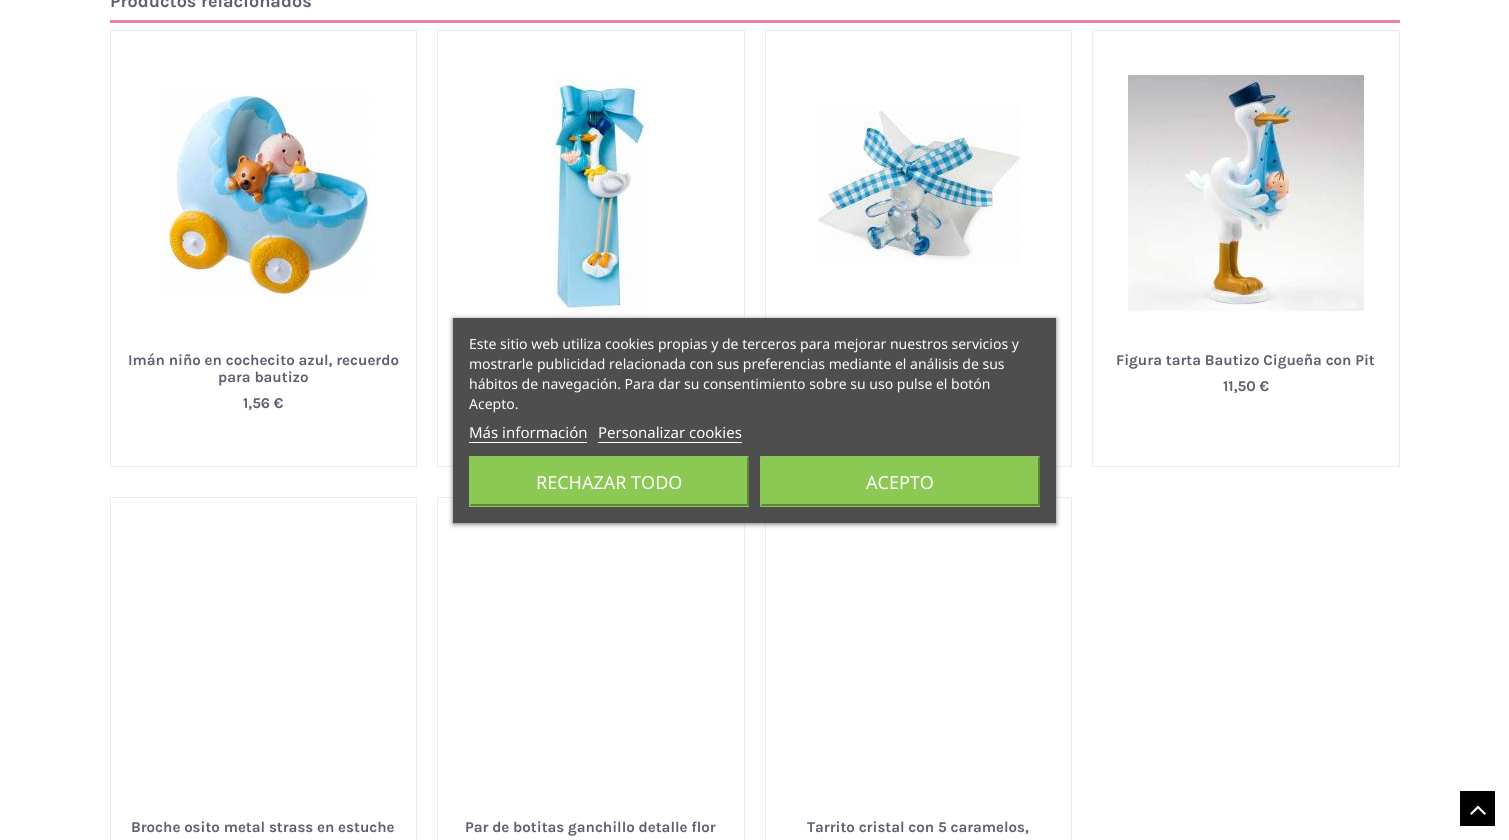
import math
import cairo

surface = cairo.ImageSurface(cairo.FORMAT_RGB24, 1509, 840)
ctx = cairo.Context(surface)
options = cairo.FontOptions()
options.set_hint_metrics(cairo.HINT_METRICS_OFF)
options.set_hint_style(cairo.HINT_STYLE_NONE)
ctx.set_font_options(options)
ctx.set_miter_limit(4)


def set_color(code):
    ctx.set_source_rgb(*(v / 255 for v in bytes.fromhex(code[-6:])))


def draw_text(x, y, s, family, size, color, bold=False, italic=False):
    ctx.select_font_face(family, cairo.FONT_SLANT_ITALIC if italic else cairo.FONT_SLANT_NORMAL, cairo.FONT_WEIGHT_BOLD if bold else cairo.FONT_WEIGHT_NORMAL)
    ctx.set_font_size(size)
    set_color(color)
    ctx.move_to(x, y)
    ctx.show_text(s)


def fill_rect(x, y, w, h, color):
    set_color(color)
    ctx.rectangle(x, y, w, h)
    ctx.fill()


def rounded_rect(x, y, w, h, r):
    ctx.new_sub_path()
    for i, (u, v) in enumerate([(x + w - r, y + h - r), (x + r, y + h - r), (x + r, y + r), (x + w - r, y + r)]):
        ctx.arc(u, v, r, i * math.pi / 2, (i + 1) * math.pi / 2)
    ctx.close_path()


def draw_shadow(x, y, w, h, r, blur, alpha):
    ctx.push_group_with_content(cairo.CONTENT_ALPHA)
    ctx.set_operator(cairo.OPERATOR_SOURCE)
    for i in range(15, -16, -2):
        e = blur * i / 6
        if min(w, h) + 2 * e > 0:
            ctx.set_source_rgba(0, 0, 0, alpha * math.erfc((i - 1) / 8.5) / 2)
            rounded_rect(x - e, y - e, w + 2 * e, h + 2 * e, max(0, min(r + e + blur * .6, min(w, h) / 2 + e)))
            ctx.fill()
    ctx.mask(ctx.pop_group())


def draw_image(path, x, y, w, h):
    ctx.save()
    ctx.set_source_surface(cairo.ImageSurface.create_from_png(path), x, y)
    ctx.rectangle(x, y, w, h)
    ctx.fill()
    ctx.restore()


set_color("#ffffff")
ctx.paint()
fill_rect(110, 20, 1290, 3, "#ed80a8")
draw_text(110, 7, "Productos relacionados", "Karla", 18, "#605d70", bold=True)
ctx.rectangle(110.5, 30.5, 306, 436)
set_color("#ededed")
ctx.set_line_width(1)
ctx.stroke()
draw_image("assets/img1.png", 161, 89, 209, 208)
draw_text(128, 365, "Imán niño en cochecito azul, recuerdo", "Karla", 15, "#605d70", bold=True)
draw_text(218, 382, "para bautizo", "Karla", 15, "#605d70", bold=True)
draw_text(243, 408, "1,56 €", "Karla", 15, "#605d70", bold=True)
ctx.rectangle(437.5, 30.5, 307, 436)
set_color("#ededed")
ctx.stroke()
draw_image("assets/img2.png", 552, 73, 97, 240)
ctx.rectangle(765.5, 30.5, 306, 436)
ctx.stroke()
draw_image("assets/img3.png", 817, 105, 204, 160)
ctx.rectangle(1092.5, 30.5, 307, 436)
ctx.stroke()
draw_image("assets/img4.png", 1128, 75, 236, 237)
draw_text(1116, 365, "Figura tarta Bautizo Cigueña con Pit", "Karla", 15, "#605d70", bold=True)
draw_text(1223, 391, "11,50 €", "Karla", 15, "#605d70", bold=True)
ctx.rectangle(110.5, 497.5, 306, 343)
set_color("#ededed")
ctx.stroke()
draw_text(131, 832, "Broche osito metal strass en estuche", "Karla", 15, "#605d70", bold=True)
ctx.rectangle(437.5, 497.5, 307, 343)
set_color("#ededed")
ctx.stroke()
draw_text(465, 832, "Par de botitas ganchillo detalle flor", "Karla", 15, "#605d70", bold=True)
ctx.rectangle(765.5, 497.5, 306, 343)
set_color("#ededed")
ctx.stroke()
draw_text(807, 832, "Tarrito cristal con 5 caramelos,", "Karla", 15, "#605d70", bold=True)
ctx.save()
ctx.set_fill_rule(cairo.FILL_RULE_EVEN_ODD)
ctx.new_path()
ctx.move_to(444, 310)
ctx.line_to(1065, 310)
ctx.line_to(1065, 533)
ctx.line_to(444, 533)
ctx.close_path()
ctx.move_to(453, 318)
ctx.line_to(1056, 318)
ctx.line_to(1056, 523)
ctx.line_to(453, 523)
ctx.close_path()
ctx.clip()
set_color("#707070")
draw_shadow(453, 319, 603, 205, 0, 2.5, 1)
ctx.restore()
ctx.set_source_rgba(0.231, 0.231, 0.231, 0.9)
ctx.rectangle(453, 318, 603, 205)
ctx.fill()
draw_text(469, 349, "Este sitio web utiliza cookies propias y de terceros para mejorar nuestros servicios y", "Noto Sans", 14, "#ffffff")
draw_text(469, 369, "mostrarle publicidad relacionada con sus preferencias mediante el análisis de sus", "Noto Sans", 14, "#ffffff")
draw_text(469, 389, "hábitos de navegación. Para dar su consentimiento sobre su uso pulse el botón", "Noto Sans", 14, "#ffffff")
draw_text(469, 409, "Acepto.", "Noto Sans", 14, "#ffffff")
draw_text(469, 438, "Más información", "Noto Sans", 15, "#ffffff")
fill_rect(469, 442, 118, 1, "#ffffff")
draw_text(598, 438, "Personalizar cookies", "Noto Sans", 15, "#ffffff")
fill_rect(598, 442, 144, 1, "#ffffff")
fill_rect(469, 457, 280, 50, "#8bc954")
ctx.new_path()
ctx.move_to(469, 456)
ctx.line_to(749, 456)
ctx.line_to(747, 458)
ctx.line_to(471, 458)
ctx.close_path()
ctx.fill()
set_color("#5d8638")
ctx.new_path()
ctx.move_to(749, 456)
ctx.line_to(749, 506)
ctx.line_to(747, 504)
ctx.line_to(747, 458)
ctx.close_path()
ctx.fill()
ctx.new_path()
ctx.move_to(749, 506)
ctx.line_to(469, 506)
ctx.line_to(471, 504)
ctx.line_to(747, 504)
ctx.close_path()
ctx.fill()
set_color("#8bc954")
ctx.new_path()
ctx.move_to(469, 506)
ctx.line_to(469, 456)
ctx.line_to(471, 458)
ctx.line_to(471, 504)
ctx.close_path()
ctx.fill()
draw_text(536, 489, "RECHAZAR TODO", "Noto Sans", 18, "#ffffff")
fill_rect(760, 457, 280, 50, "#8bc954")
ctx.new_path()
ctx.move_to(760, 456)
ctx.line_to(1040, 456)
ctx.line_to(1038, 458)
ctx.line_to(762, 458)
ctx.close_path()
ctx.fill()
set_color("#5d8638")
ctx.new_path()
ctx.move_to(1040, 456)
ctx.line_to(1040, 506)
ctx.line_to(1038, 504)
ctx.line_to(1038, 458)
ctx.close_path()
ctx.fill()
ctx.new_path()
ctx.move_to(1040, 506)
ctx.line_to(760, 506)
ctx.line_to(762, 504)
ctx.line_to(1038, 504)
ctx.close_path()
ctx.fill()
set_color("#8bc954")
ctx.new_path()
ctx.move_to(760, 506)
ctx.line_to(760, 456)
ctx.line_to(762, 458)
ctx.line_to(762, 504)
ctx.close_path()
ctx.fill()
draw_text(866, 489, "ACEPTO", "Noto Sans", 18, "#ffffff")
fill_rect(1460, 791, 35, 35, "#000000")
draw_image("assets/img5.png", 1470, 805, 16, 10)
surface.write_to_png("output.png")
